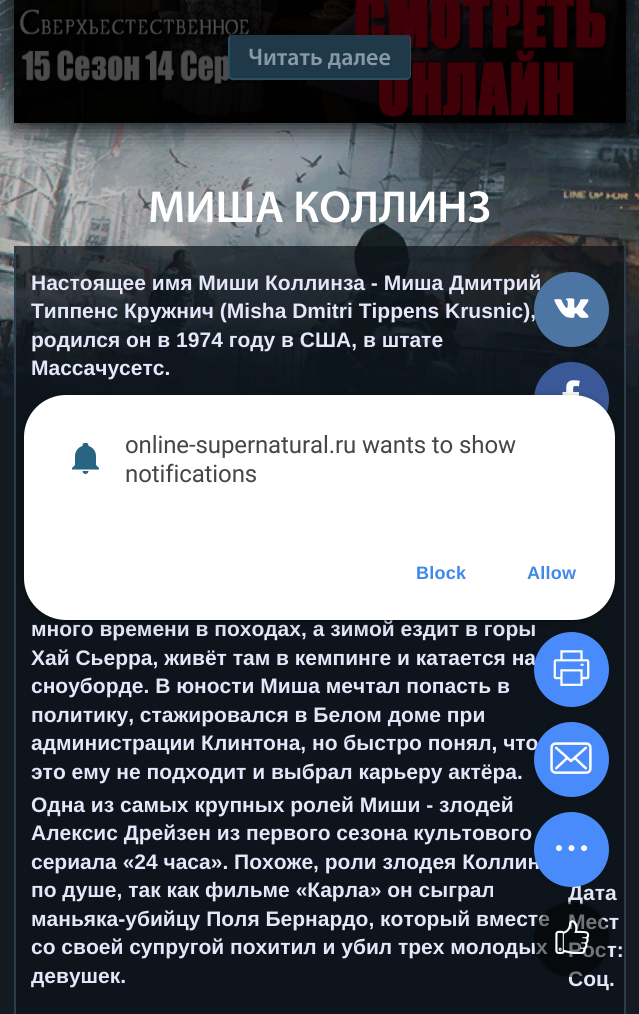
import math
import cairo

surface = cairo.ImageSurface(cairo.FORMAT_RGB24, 639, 1014)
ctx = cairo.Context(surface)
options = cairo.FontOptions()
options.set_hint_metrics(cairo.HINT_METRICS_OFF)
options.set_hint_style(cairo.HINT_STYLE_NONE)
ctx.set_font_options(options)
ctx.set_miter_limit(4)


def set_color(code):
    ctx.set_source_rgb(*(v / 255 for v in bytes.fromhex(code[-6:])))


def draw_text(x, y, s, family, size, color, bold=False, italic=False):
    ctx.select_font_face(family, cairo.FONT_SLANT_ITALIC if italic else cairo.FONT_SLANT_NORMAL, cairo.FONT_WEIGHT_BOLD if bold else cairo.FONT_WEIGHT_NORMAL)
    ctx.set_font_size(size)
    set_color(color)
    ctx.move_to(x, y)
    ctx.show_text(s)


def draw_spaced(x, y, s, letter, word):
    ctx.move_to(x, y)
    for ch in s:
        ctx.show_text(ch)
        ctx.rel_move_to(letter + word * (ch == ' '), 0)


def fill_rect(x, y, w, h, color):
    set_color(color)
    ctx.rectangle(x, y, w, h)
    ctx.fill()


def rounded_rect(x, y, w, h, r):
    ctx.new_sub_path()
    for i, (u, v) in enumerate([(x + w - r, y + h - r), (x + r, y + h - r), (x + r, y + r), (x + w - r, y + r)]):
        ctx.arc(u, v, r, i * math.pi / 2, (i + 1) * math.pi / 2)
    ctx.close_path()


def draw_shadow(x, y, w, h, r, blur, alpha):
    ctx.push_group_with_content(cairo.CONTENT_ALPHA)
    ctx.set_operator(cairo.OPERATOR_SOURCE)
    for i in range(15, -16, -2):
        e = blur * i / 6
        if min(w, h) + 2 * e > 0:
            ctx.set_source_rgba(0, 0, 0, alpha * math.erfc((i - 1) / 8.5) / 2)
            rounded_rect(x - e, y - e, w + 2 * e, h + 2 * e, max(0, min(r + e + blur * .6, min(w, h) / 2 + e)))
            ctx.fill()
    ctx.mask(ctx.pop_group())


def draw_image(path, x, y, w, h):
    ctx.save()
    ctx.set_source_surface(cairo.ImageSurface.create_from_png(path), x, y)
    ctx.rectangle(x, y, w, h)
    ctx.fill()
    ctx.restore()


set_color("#131a22")
ctx.paint()
draw_image("assets/img1.png", 0, 0, 639, 465)
set_color("#000000")
draw_shadow(14, -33, 612, 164, 0, 11, 0.75)
draw_image("assets/img2.png", 14, 0, 612, 123)
ctx.set_source_rgba(0, 0, 0, 0.7)
ctx.rectangle(14, 0, 612, 123)
ctx.fill()
set_color("#203949")
rounded_rect(228, 35, 183, 45, 5)
ctx.fill()
set_color("#2d4d62")
ctx.set_fill_rule(cairo.FILL_RULE_EVEN_ODD)
ctx.new_path()
ctx.move_to(232, 34)
ctx.line_to(406, 34)
ctx.curve_to(409, 34, 411, 37, 411, 39)
ctx.line_to(411, 75)
ctx.curve_to(411, 77, 409, 80, 406, 80)
ctx.line_to(232, 80)
ctx.curve_to(230, 80, 228, 77, 228, 75)
ctx.line_to(228, 39)
ctx.curve_to(228, 37, 230, 34, 232, 34)
ctx.close_path()
ctx.move_to(232, 34)
ctx.line_to(406, 34)
ctx.curve_to(408, 34, 410, 37, 410, 39)
ctx.line_to(410, 75)
ctx.curve_to(410, 77, 408, 78, 406, 78)
ctx.line_to(232, 78)
ctx.curve_to(231, 78, 230, 77, 230, 75)
ctx.line_to(230, 39)
ctx.curve_to(230, 37, 231, 34, 232, 34)
ctx.close_path()
ctx.fill()
draw_text(248, 65, "Читать далее", "Myriad SemiBold", 24, "#8799aa")
draw_text(148, 222, "МИША КОЛЛИНЗ", "Myriad SemiBold", 45, "#ffffff")
ctx.set_source_rgba(0.047, 0.075, 0.102, 0.72)
ctx.rectangle(16, 246, 608, 768)
ctx.fill()
set_color("#000000")
draw_shadow(533, 273, 75, 75, 37.5, 4, 0.2)
draw_text(31, 290, "Настоящее имя Миши Коллинза - Миша Дмитрий", "Liberation Sans", 21, "#e6e6fa", bold=True)
draw_text(31, 318, "Типпенс Кружнич (Misha Dmitri Tippens Krusnic),", "Liberation Sans", 21, "#e6e6fa", bold=True)
set_color("#4d75a3")
ctx.new_path()
ctx.arc(571.5, 309.5, 37.5, 0, 2 * math.pi)
ctx.fill()
draw_image("assets/img3.png", 554, 298, 35, 20)
set_color("#3b5998")
ctx.arc(571.5, 399.5, 37.5, 0, 2 * math.pi)
ctx.fill()
draw_image("assets/img4.png", 562, 380, 18, 16)
set_color("#000000")
draw_shadow(533, 633, 75, 75, 37.5, 4, 0.2)
draw_text(31, 636, "много времени в походах, а зимой ездит в горы", "Liberation Sans", 21, "#e6e6fa", bold=True)
draw_text(31, 665, "Хай Сьерра, живёт там в кемпинге и катается на", "Liberation Sans", 21, "#e6e6fa", bold=True)
set_color("#498bfa")
ctx.new_path()
ctx.arc(571.5, 669.5, 37.5, 0, 2 * math.pi)
ctx.fill()
draw_image("assets/img5.png", 553, 650, 37, 36)
set_color("#000000")
draw_shadow(533, 723, 75, 75, 37.5, 4, 0.2)
draw_text(31, 750, "администрации Клинтона, но быстро понял, что", "Liberation Sans", 21, "#e6e6fa", bold=True)
set_color("#498bfa")
ctx.new_path()
ctx.arc(571.5, 759.5, 37.5, 0, 2 * math.pi)
ctx.fill()
draw_image("assets/img6.png", 550, 742, 42, 32)
set_color("#000000")
draw_shadow(533, 813, 75, 75, 37.5, 4, 0.2)
draw_text(31, 869, "сериала «24 часа». Похоже, роли злодея Коллин", "Liberation Sans", 21, "#e6e6fa", bold=True)
draw_text(568, 900, "Дата", "Liberation Sans", 21, "#e6e6fa", bold=True)
set_color("#498bfa")
ctx.new_path()
ctx.arc(571.5, 849.5, 37.5, 0, 2 * math.pi)
ctx.fill()
draw_image("assets/img7.png", 556, 845, 31, 7)
ctx.save()
ctx.new_path()
ctx.move_to(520, 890)
ctx.line_to(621, 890)
ctx.line_to(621, 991)
ctx.line_to(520, 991)
ctx.close_path()
ctx.move_to(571.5, 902)
ctx.curve_to(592, 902, 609, 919, 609, 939.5)
ctx.curve_to(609, 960, 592, 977, 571.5, 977)
ctx.curve_to(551, 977, 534, 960, 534, 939.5)
ctx.curve_to(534, 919, 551, 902, 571.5, 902)
ctx.close_path()
ctx.clip()
set_color("#000000")
draw_shadow(533, 903, 75, 75, 37.5, 4, 0.2)
ctx.restore()
draw_text(31, 926, "маньяка-убийцу Поля Бернардо, который вместе", "Liberation Sans", 21, "#e6e6fa", bold=True)
draw_text(31, 954, "со своей супругой похитил и убил трех молодых", "Liberation Sans", 21, "#e6e6fa", bold=True)
draw_text(568, 929, "Мест", "Liberation Sans", 21, "#e6e6fa", bold=True)
draw_text(568, 957, "Рост:", "Liberation Sans", 21, "#e6e6fa", bold=True)
draw_text(568, 986, "Соц.", "Liberation Sans", 21, "#e6e6fa", bold=True)
ctx.set_source_rgba(0, 0, 0, 0.5)
ctx.new_path()
ctx.arc(571.5, 939.5, 37.5, 0, 2 * math.pi)
ctx.fill()
draw_image("assets/img8.png", 555, 920, 35, 34)
fill_rect(624, 246, 2, 768, "#2d3c4a")
fill_rect(14, 246, 2, 768, "#2d3c4a")
draw_text(31, 347, "родился он в 1974 году в США, в штате", "Liberation Sans", 21, "#e6e6fa", bold=True)
draw_text(31, 375, "Массачусетс.", "Liberation Sans", 21, "#e6e6fa", bold=True)
draw_text(31, 693, "сноуборде. В юности Миша мечтал попасть в", "Liberation Sans", 21, "#e6e6fa", bold=True)
draw_text(31, 722, "политику, стажировался в Белом доме при", "Liberation Sans", 21, "#e6e6fa", bold=True)
draw_text(31, 779, "это ему не подходит и выбрал карьеру актёра.", "Liberation Sans", 21, "#e6e6fa", bold=True)
draw_text(31, 812, "Одна из самых крупных ролей Миши - злодей", "Liberation Sans", 21, "#e6e6fa", bold=True)
draw_text(31, 840, "Алексис Дрейзен из первого сезона культового", "Liberation Sans", 21, "#e6e6fa", bold=True)
draw_text(31, 897, "по душе, так как фильме «Карла» он сыграл", "Liberation Sans", 21, "#e6e6fa", bold=True)
draw_text(31, 983, "девушек.", "Liberation Sans", 21, "#e6e6fa", bold=True)
set_color("#000000")
draw_shadow(21, 395, 597, 231, 45, 4.5, 0.15)
draw_shadow(24, 396, 591, 225, 42, 1.5, 0.3)
set_color("#ffffff")
rounded_rect(24, 395, 591, 225, 42)
ctx.fill()
draw_image("assets/img9.png", 72, 443, 27, 31)
ctx.select_font_face("Roboto")
ctx.set_font_size(24)
set_color("#434749")
draw_spaced(125, 453, "online-supernatural.ru wants to show", -0.1, 0)
draw_spaced(125, 482, "notifications", -0.1, 0)
ctx.select_font_face("Liberation Sans", cairo.FONT_SLANT_NORMAL, cairo.FONT_WEIGHT_BOLD)
ctx.set_font_size(18)
set_color("#4089e8")
draw_spaced(416, 579, "Block", 0.25, 0)
draw_spaced(527, 579, "Allow", 0.25, 0)
surface.write_to_png("output.png")
